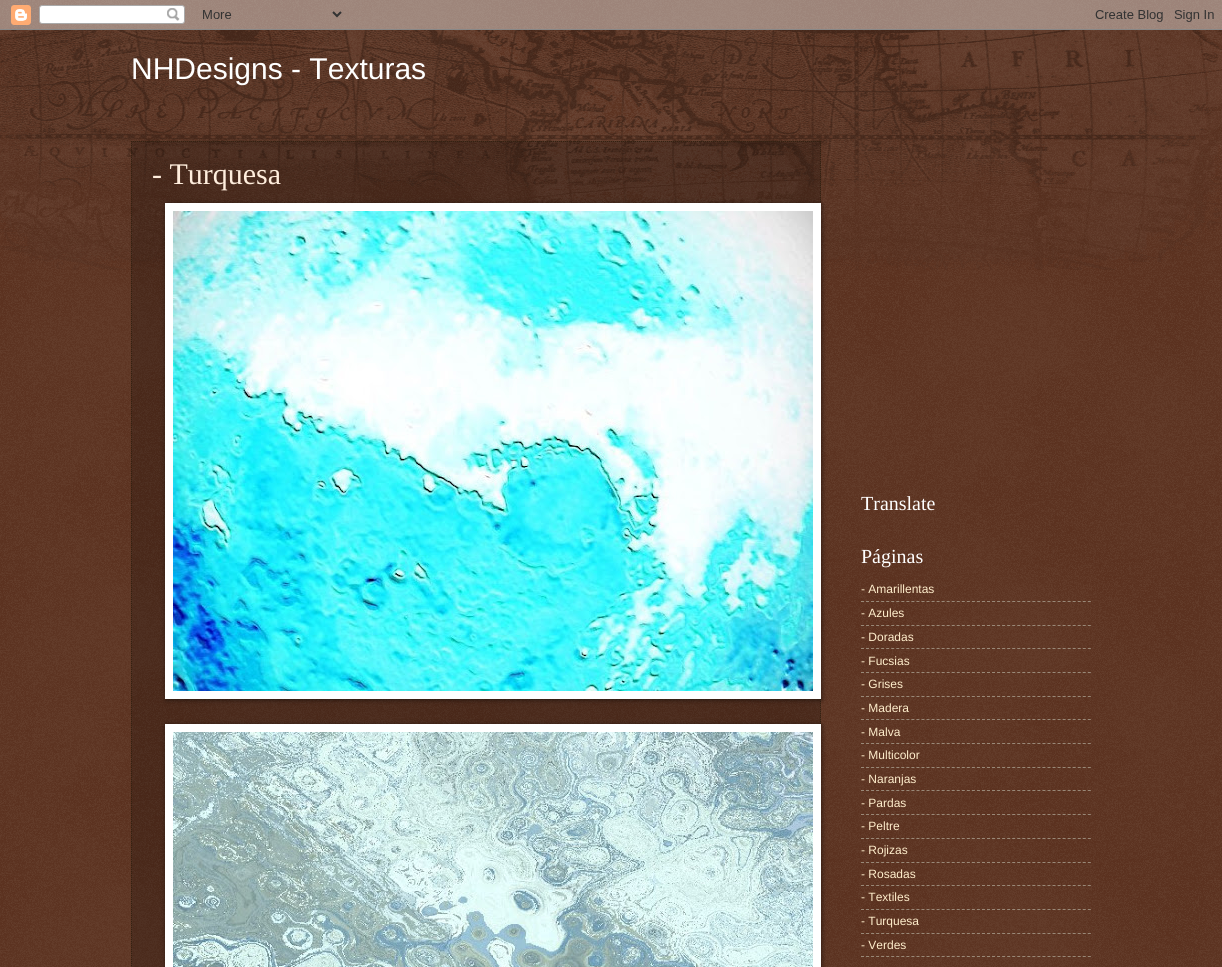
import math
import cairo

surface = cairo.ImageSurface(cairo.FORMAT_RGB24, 1222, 967)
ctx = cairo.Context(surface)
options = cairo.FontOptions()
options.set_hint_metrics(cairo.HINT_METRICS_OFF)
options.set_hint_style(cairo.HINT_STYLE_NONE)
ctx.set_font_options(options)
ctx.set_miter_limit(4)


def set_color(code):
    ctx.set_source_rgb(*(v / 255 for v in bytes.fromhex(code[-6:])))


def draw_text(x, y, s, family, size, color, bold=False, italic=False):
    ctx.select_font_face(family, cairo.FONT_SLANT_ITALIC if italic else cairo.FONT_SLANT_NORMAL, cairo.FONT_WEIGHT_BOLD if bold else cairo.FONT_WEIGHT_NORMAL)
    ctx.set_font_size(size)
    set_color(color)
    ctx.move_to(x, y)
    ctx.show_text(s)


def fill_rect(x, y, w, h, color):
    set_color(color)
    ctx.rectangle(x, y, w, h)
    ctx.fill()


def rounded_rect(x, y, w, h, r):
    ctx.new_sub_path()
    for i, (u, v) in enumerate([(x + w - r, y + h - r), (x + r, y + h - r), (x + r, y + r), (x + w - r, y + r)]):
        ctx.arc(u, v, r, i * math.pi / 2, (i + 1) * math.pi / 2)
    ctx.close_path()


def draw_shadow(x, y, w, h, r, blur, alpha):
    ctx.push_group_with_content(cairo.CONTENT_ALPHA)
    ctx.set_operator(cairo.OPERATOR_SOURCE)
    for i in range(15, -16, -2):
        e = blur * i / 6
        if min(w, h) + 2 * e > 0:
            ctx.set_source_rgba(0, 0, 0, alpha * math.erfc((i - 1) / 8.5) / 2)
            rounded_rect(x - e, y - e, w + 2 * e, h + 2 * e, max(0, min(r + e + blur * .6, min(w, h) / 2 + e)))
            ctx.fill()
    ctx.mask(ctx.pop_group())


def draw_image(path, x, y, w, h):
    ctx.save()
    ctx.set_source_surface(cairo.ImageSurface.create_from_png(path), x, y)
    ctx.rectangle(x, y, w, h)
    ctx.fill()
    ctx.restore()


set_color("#441500")
ctx.paint()
draw_image("assets/img1.png", 0, 0, 1222, 967)
draw_image("assets/img2.png", 0, 0, 1222, 30)
draw_image("assets/img3.png", 0, 30, 1222, 240)
draw_text(131, 79, "NHDesigns - Texturas", "Liberation Sans", 30, "#ffffff")
ctx.set_source_rgba(0, 0, 0, 0.2)
ctx.rectangle(131, 141, 690, 826)
ctx.fill()
ctx.new_path()
ctx.move_to(131, 141.5)
ctx.line_to(821, 141.5)
set_color("#332211")
ctx.set_line_width(1)
ctx.set_dash([1, 1])
ctx.stroke()
ctx.new_path()
ctx.move_to(820.5, 141)
ctx.line_to(820.5, 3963)
ctx.stroke()
ctx.new_path()
ctx.move_to(131.5, 141)
ctx.line_to(131.5, 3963)
ctx.stroke()
draw_text(152, 184, "- Turquesa", "Liberation Serif", 30, "#ffeedd")
set_color("#000000")
draw_shadow(166, 204, 656, 496, 0, 2.5, 0.5)
fill_rect(165, 203, 656, 496, "#ffffff")
draw_image("assets/img4.png", 173, 211, 640, 480)
set_color("#000000")
draw_shadow(166, 725, 656, 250, 0, 2.5, 0.5)
fill_rect(165, 724, 656, 243, "#ffffff")
draw_image("assets/img5.png", 173, 732, 640, 235)
draw_text(861, 510, "Translate", "Liberation Serif", 20, "#ffffff")
draw_text(861, 563, "Páginas", "Liberation Serif", 20, "#ffffff")
draw_text(861, 593, "- Amarillentas", "Liberation Sans", 12, "#ffeecc")
ctx.new_path()
ctx.move_to(861, 601.5)
ctx.line_to(1091, 601.5)
set_color("#998877")
ctx.set_dash([3, 2.04])
ctx.stroke()
draw_text(861, 617, "- Azules", "Liberation Sans", 12, "#ffeecc")
ctx.new_path()
ctx.move_to(861, 625.5)
ctx.line_to(1091, 625.5)
set_color("#998877")
ctx.stroke()
draw_text(861, 641, "- Doradas", "Liberation Sans", 12, "#ffeecc")
ctx.new_path()
ctx.move_to(861, 648.5)
ctx.line_to(1091, 648.5)
set_color("#998877")
ctx.stroke()
draw_text(861, 665, "- Fucsias", "Liberation Sans", 12, "#ffeecc")
ctx.new_path()
ctx.move_to(861, 672.5)
ctx.line_to(1091, 672.5)
set_color("#998877")
ctx.stroke()
draw_text(861, 688, "- Grises", "Liberation Sans", 12, "#ffeecc")
ctx.new_path()
ctx.move_to(861, 696.5)
ctx.line_to(1091, 696.5)
set_color("#998877")
ctx.stroke()
draw_text(861, 712, "- Madera", "Liberation Sans", 12, "#ffeecc")
ctx.new_path()
ctx.move_to(861, 719.5)
ctx.line_to(1091, 719.5)
set_color("#998877")
ctx.stroke()
draw_text(861, 736, "- Malva", "Liberation Sans", 12, "#ffeecc")
ctx.new_path()
ctx.move_to(861, 743.5)
ctx.line_to(1091, 743.5)
set_color("#998877")
ctx.stroke()
draw_text(861, 759, "- Multicolor", "Liberation Sans", 12, "#ffeecc")
ctx.new_path()
ctx.move_to(861, 767.5)
ctx.line_to(1091, 767.5)
set_color("#998877")
ctx.stroke()
draw_text(861, 783, "- Naranjas", "Liberation Sans", 12, "#ffeecc")
ctx.new_path()
ctx.move_to(861, 790.5)
ctx.line_to(1091, 790.5)
set_color("#998877")
ctx.stroke()
draw_text(861, 807, "- Pardas", "Liberation Sans", 12, "#ffeecc")
ctx.new_path()
ctx.move_to(861, 814.5)
ctx.line_to(1091, 814.5)
set_color("#998877")
ctx.stroke()
draw_text(861, 830, "- Peltre", "Liberation Sans", 12, "#ffeecc")
ctx.new_path()
ctx.move_to(861, 838.5)
ctx.line_to(1091, 838.5)
set_color("#998877")
ctx.stroke()
draw_text(861, 854, "- Rojizas", "Liberation Sans", 12, "#ffeecc")
ctx.new_path()
ctx.move_to(861, 862.5)
ctx.line_to(1091, 862.5)
set_color("#998877")
ctx.stroke()
draw_text(861, 878, "- Rosadas", "Liberation Sans", 12, "#ffeecc")
ctx.new_path()
ctx.move_to(861, 885.5)
ctx.line_to(1091, 885.5)
set_color("#998877")
ctx.stroke()
draw_text(861, 901, "- Textiles", "Liberation Sans", 12, "#ffeecc")
ctx.new_path()
ctx.move_to(861, 909.5)
ctx.line_to(1091, 909.5)
set_color("#998877")
ctx.stroke()
draw_text(861, 925, "- Turquesa", "Liberation Sans", 12, "#ffeecc")
ctx.new_path()
ctx.move_to(861, 933.5)
ctx.line_to(1091, 933.5)
set_color("#998877")
ctx.stroke()
draw_text(861, 949, "- Verdes", "Liberation Sans", 12, "#ffeecc")
ctx.new_path()
ctx.move_to(861, 956.5)
ctx.line_to(1091, 956.5)
set_color("#998877")
ctx.stroke()
surface.write_to_png("output.png")
